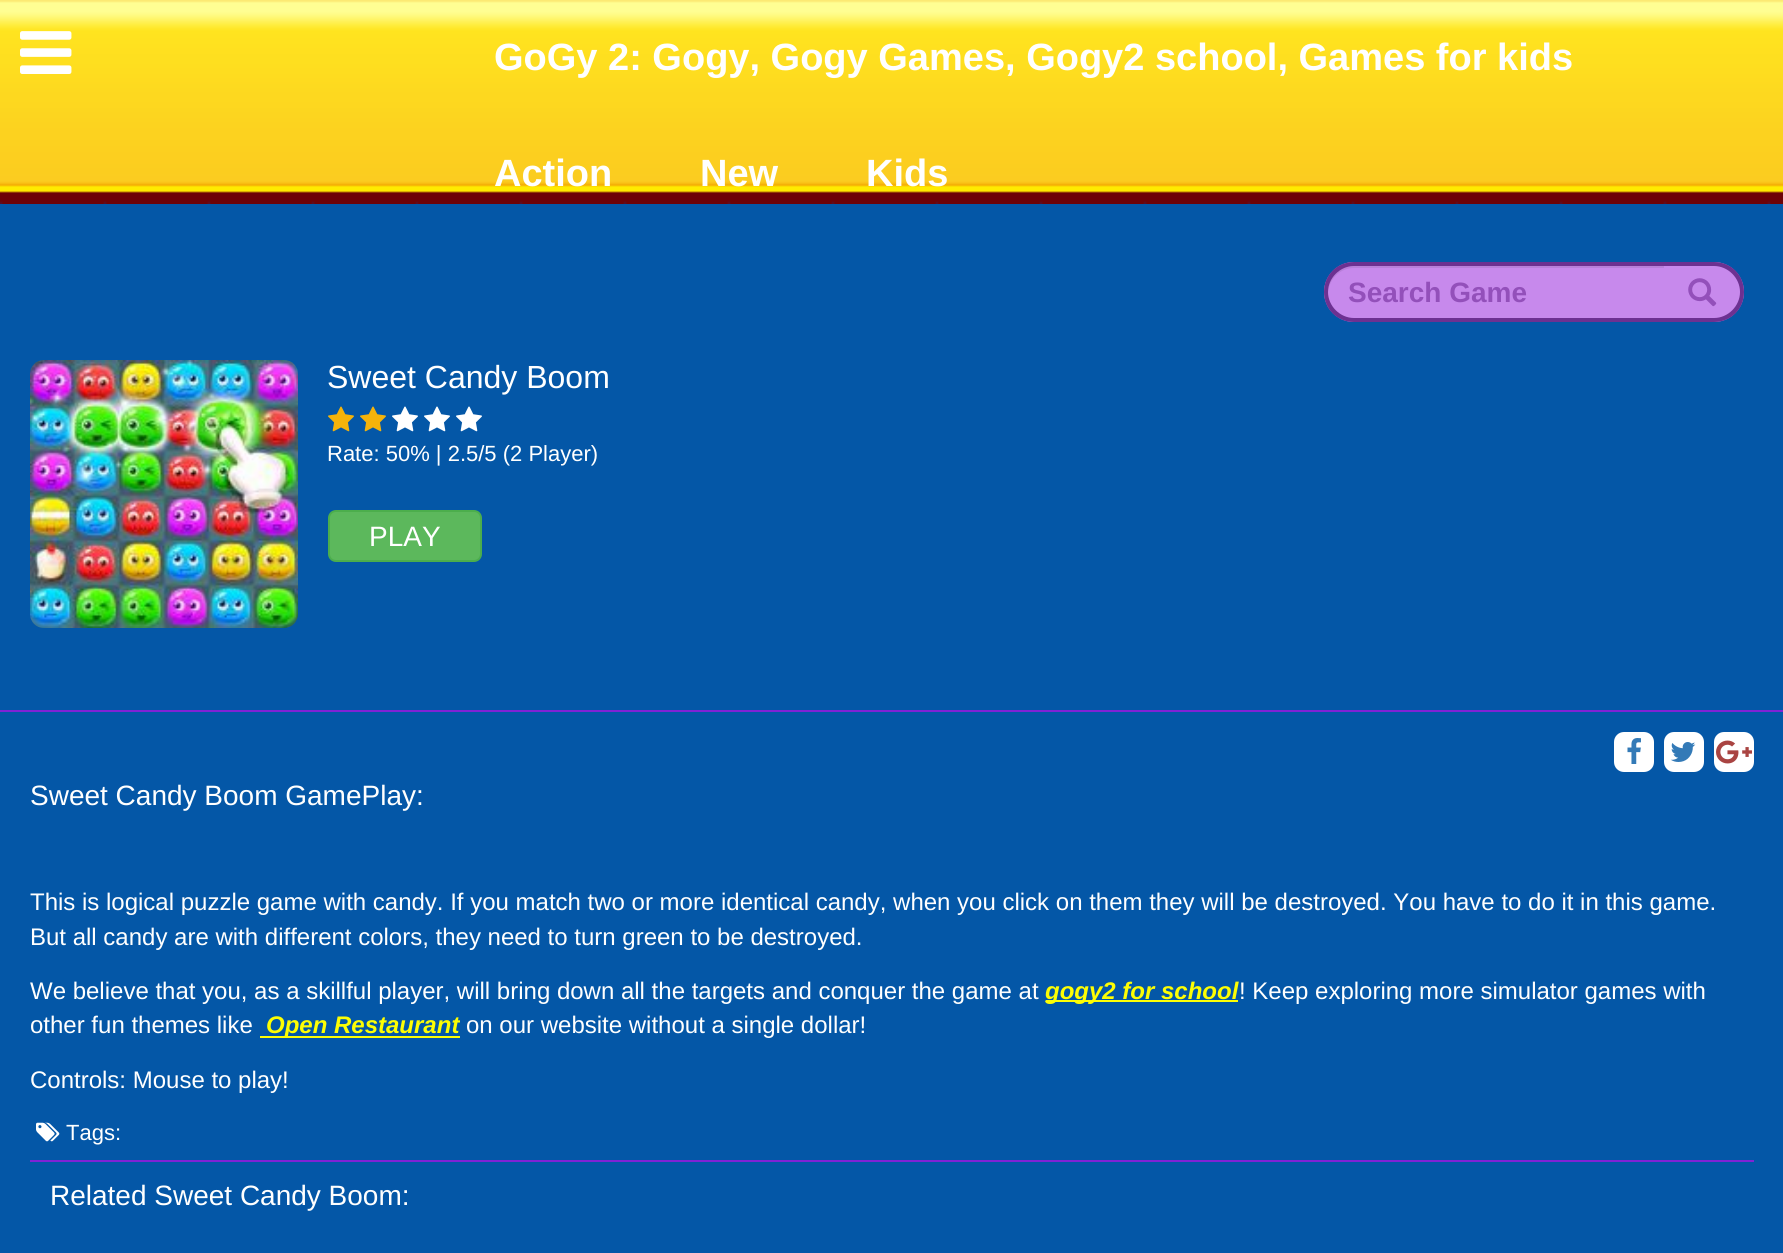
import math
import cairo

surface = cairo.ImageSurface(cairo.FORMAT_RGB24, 1783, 1253)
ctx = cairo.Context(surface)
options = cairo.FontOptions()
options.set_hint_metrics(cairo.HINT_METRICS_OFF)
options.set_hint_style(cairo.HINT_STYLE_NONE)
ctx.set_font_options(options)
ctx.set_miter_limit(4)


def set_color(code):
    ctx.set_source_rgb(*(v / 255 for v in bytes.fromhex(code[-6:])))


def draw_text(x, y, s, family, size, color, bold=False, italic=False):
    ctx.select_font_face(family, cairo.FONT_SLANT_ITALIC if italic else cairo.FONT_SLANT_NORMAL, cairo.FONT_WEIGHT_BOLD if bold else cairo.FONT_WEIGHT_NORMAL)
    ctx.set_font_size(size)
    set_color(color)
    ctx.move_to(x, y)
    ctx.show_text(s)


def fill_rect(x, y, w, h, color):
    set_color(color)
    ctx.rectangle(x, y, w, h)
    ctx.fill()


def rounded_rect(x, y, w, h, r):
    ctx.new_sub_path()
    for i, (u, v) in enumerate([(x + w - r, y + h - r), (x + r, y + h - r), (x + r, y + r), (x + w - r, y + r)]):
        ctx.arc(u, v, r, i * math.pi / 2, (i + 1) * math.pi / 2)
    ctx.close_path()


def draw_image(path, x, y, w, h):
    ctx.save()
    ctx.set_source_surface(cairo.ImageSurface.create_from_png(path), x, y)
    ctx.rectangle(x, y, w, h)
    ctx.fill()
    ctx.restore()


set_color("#0457a7")
ctx.paint()
draw_image("assets/img1.png", 0, 0, 1783, 204)
draw_image("assets/img2.png", 20, 31, 52, 43)
draw_text(494, 70, "GoGy 2: Gogy, Gogy Games, Gogy2 school, Games for kids", "Liberation Sans", 38, "#ffffff", bold=True)
draw_text(494, 186, "Action", "Liberation Sans", 38, "#ffffff", bold=True)
draw_text(700, 186, "New", "Liberation Sans", 38, "#ffffff", bold=True)
draw_text(866, 186, "Kids", "Liberation Sans", 38, "#ffffff", bold=True)
set_color("#c789ec")
ctx.new_path()
ctx.move_to(1354, 262)
ctx.line_to(1666, 262)
ctx.line_to(1666, 322)
ctx.line_to(1354, 322)
ctx.curve_to(1337.5, 322, 1324, 308.5, 1324, 292)
ctx.curve_to(1324, 275.5, 1337.5, 262, 1354, 262)
ctx.close_path()
ctx.fill()
set_color("#b87fda")
ctx.new_path()
ctx.move_to(1354, 268)
ctx.line_to(1666, 268)
ctx.line_to(1666, 266)
ctx.line_to(1354, 266)
ctx.curve_to(1339, 266, 1327, 278, 1328, 293)
ctx.curve_to(1329, 279, 1340, 268, 1354, 268)
ctx.close_path()
ctx.fill()
set_color("#6d3191")
ctx.set_fill_rule(cairo.FILL_RULE_EVEN_ODD)
ctx.new_path()
ctx.move_to(1354, 262)
ctx.line_to(1666, 262)
ctx.line_to(1666, 322)
ctx.line_to(1354, 322)
ctx.curve_to(1337, 322, 1324, 309, 1324, 292)
ctx.curve_to(1324, 275, 1337, 262, 1354, 262)
ctx.close_path()
ctx.move_to(1354, 266)
ctx.line_to(1666, 266)
ctx.line_to(1666, 318)
ctx.line_to(1354, 318)
ctx.curve_to(1340, 318, 1328, 306, 1328, 292)
ctx.curve_to(1328, 278, 1340, 266, 1354, 266)
ctx.close_path()
ctx.fill()
draw_text(1348, 302, "Search Game", "Liberation Sans", 28, "#9350ba", bold=True)
set_color("#c789ec")
ctx.new_path()
ctx.move_to(1664, 262)
ctx.line_to(1714, 262)
ctx.curve_to(1730.5, 262, 1744, 275.5, 1744, 292)
ctx.curve_to(1744, 308.5, 1730.5, 322, 1714, 322)
ctx.line_to(1664, 322)
ctx.close_path()
ctx.fill()
set_color("#6d3191")
ctx.new_path()
ctx.move_to(1664, 262)
ctx.line_to(1714, 262)
ctx.curve_to(1731, 262, 1744, 275, 1744, 292)
ctx.curve_to(1744, 309, 1731, 322, 1714, 322)
ctx.line_to(1664, 322)
ctx.close_path()
ctx.move_to(1664, 266)
ctx.line_to(1714, 266)
ctx.curve_to(1728, 266, 1740, 278, 1740, 292)
ctx.curve_to(1740, 306, 1728, 318, 1714, 318)
ctx.line_to(1664, 318)
ctx.close_path()
ctx.fill()
draw_image("assets/img3.png", 1688, 278, 29, 29)
draw_image("assets/img4.png", 30, 360, 268, 268)
draw_text(327, 388, "Sweet Candy Boom", "Liberation Sans", 32, "#ffffff")
draw_image("assets/img5.png", 328, 406, 26, 26)
draw_image("assets/img5.png", 360, 406, 26, 26)
draw_image("assets/img6.png", 392, 406, 26, 26)
draw_image("assets/img6.png", 424, 406, 26, 26)
draw_image("assets/img6.png", 456, 406, 26, 26)
draw_text(327, 461, "Rate: 50% | 2.5/5 (2 Player)", "Liberation Sans", 22, "#ffffff")
set_color("#5cb85c")
rounded_rect(329, 511, 152, 50, 7)
ctx.fill_preserve()
set_color("#4cae4c")
ctx.stroke()
draw_text(369, 546, "PLAY", "Liberation Sans", 28, "#ffffff")
fill_rect(0, 710, 1783, 2, "#8023d5")
set_color("#ffffff")
rounded_rect(1614, 732, 40, 40, 10)
ctx.fill()
draw_image("assets/img7.png", 1627, 738, 14, 26)
rounded_rect(1664, 732, 40, 40, 10)
ctx.fill()
draw_image("assets/img8.png", 1670, 742, 26, 20)
rounded_rect(1714, 732, 40, 40, 10)
ctx.fill()
draw_image("assets/img9.png", 1716, 740, 36, 24)
draw_text(30, 805, "Sweet Candy Boom GamePlay:", "Liberation Sans", 28, "#ffffff")
draw_text(30, 910, "This is logical puzzle game with candy. If you match two or more identical candy, when you click on them they will be destroyed. You have to do it in this game.", "Liberation Sans", 24, "#ffffff")
draw_text(30, 945, "But all candy are with different colors, they need to turn green to be destroyed.", "Liberation Sans", 24, "#ffffff")
draw_text(30, 999, "We believe that you, as a skillful player, will bring down all the targets and conquer the game at", "Liberation Sans", 24, "#ffffff")
fill_rect(1046, 1000, 192, 2, "#fdfe03")
draw_text(1045, 999, "gogy2 for school", "Liberation Sans", 24, "#fdfe03", bold=True, italic=True)
draw_text(1239, 999, "! Keep exploring more simulator games with", "Liberation Sans", 24, "#ffffff")
draw_text(30, 1033, "other fun themes like", "Liberation Sans", 24, "#ffffff")
fill_rect(260, 1036, 200, 2, "#fdfe03")
draw_text(266, 1033, "Open Restaurant", "Liberation Sans", 24, "#fdfe03", bold=True, italic=True)
draw_text(466, 1033, "on our website without a single dollar!", "Liberation Sans", 24, "#ffffff")
draw_text(30, 1088, "Controls: Mouse to play!", "Liberation Sans", 24, "#ffffff")
draw_image("assets/img10.png", 36, 1122, 24, 20)
draw_text(66, 1140, "Tags:", "Liberation Sans", 22, "#ffffff")
fill_rect(30, 1160, 1724, 2, "#8023d5")
draw_text(50, 1205, "Related Sweet Candy Boom:", "Liberation Sans", 28, "#ffffff")
surface.write_to_png("output.png")
